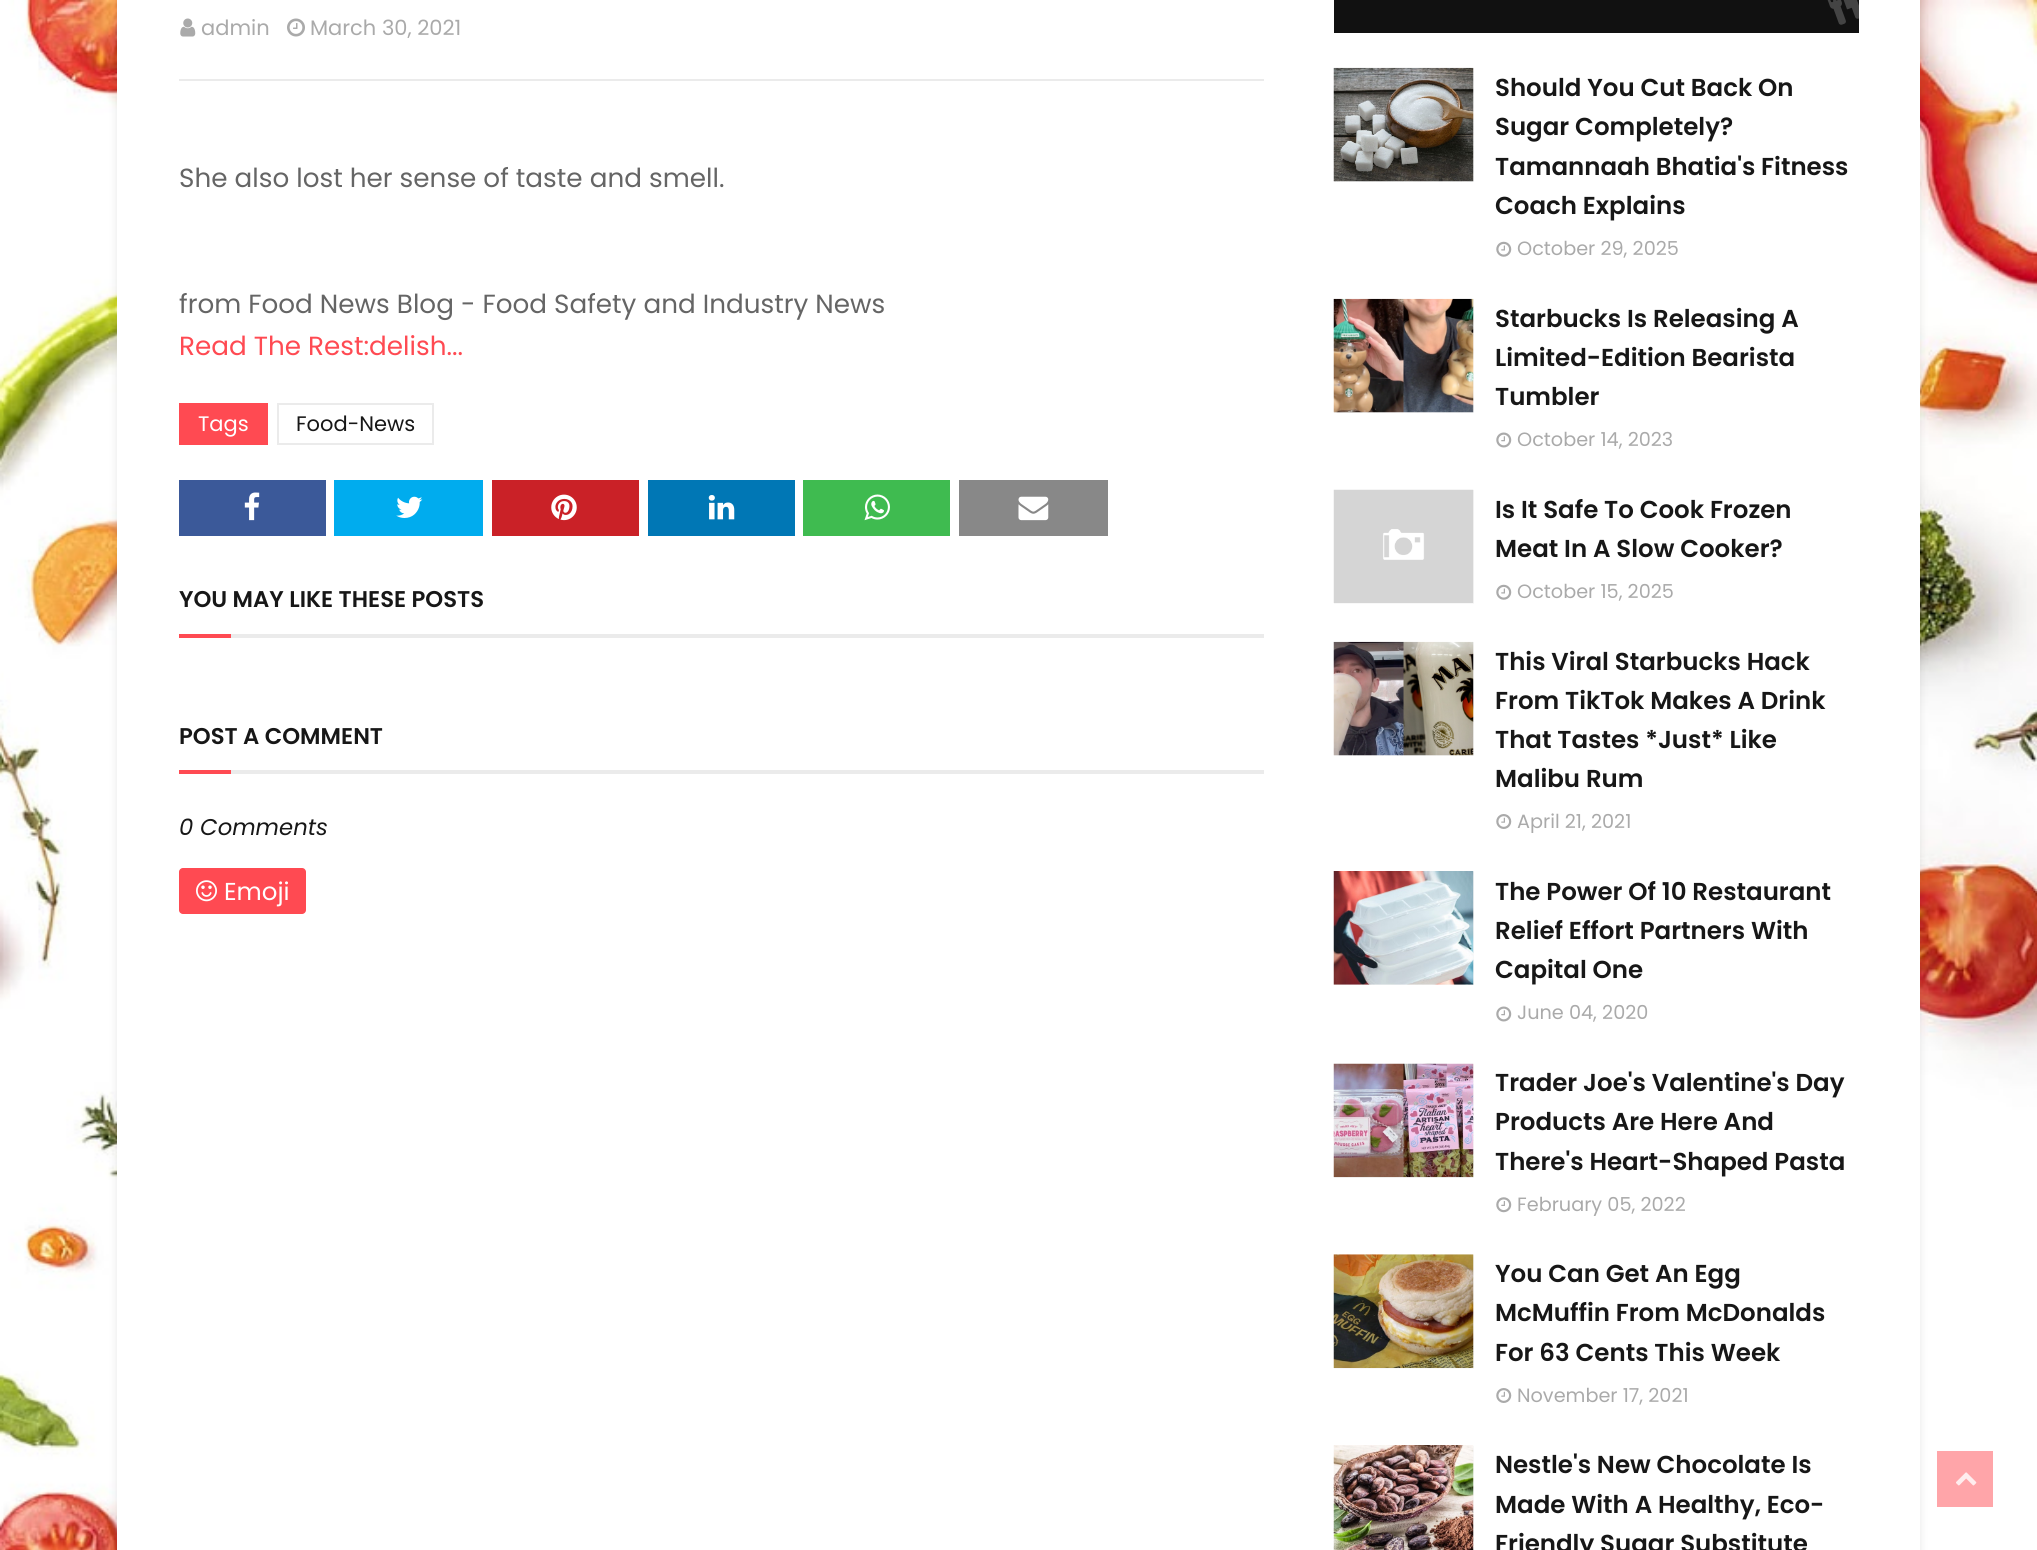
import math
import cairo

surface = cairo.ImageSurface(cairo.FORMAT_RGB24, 2037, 1550)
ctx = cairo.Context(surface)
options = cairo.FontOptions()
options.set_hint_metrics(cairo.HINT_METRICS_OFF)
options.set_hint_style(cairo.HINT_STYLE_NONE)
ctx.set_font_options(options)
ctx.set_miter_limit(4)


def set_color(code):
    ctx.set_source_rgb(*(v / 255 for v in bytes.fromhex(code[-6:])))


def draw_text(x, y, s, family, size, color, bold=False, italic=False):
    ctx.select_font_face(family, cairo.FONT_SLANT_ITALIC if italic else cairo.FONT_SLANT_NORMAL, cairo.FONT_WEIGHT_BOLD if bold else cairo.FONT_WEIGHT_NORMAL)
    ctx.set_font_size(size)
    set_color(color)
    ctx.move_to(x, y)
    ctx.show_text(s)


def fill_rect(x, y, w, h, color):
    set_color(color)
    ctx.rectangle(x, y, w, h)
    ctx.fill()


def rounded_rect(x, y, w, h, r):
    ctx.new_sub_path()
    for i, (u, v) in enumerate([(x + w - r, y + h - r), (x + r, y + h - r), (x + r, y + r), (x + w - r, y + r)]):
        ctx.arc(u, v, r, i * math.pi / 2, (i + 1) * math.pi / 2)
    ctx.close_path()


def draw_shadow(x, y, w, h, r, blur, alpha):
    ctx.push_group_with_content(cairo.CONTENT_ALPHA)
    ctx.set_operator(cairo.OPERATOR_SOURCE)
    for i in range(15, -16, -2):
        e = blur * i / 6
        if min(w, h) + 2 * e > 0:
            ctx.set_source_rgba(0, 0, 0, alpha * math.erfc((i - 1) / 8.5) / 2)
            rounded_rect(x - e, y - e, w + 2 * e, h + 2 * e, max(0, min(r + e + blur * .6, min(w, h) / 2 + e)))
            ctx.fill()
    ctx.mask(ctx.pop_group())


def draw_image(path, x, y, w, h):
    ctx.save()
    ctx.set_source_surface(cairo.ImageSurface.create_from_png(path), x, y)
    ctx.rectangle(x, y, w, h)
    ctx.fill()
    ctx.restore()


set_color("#ffffff")
ctx.paint()
draw_image("assets/img1.png", 0, 0, 2037, 1550)
set_color("#000000")
draw_shadow(117, -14, 1803, 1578, 0, 4.5, 0.1)
fill_rect(117, 0, 1803, 1550, "#ffffff")
draw_image("assets/img2.png", 180, 18, 16, 19)
draw_text(201, 35, "admin", "Poppins", 21, "#aaaaaa")
draw_image("assets/img3.png", 287, 18, 18, 19)
draw_text(310, 35, "March 30, 2021", "Poppins", 21, "#aaaaaa")
fill_rect(179, 79, 1085, 2, "#ebebeb")
draw_text(179, 187, "She also lost her sense of taste and smell.", "Poppins", 26.25, "#656565")
draw_text(179, 313, "from Food News Blog - Food Safety and Industry News", "Poppins", 26.25, "#656565")
draw_text(179, 355, "Read The Rest:delish...", "Poppins", 26.25, "#ff4a52")
fill_rect(179, 403, 89, 42, "#ff4a52")
draw_text(198, 431, "Tags", "Poppins", 21, "#ffffff")
ctx.rectangle(278, 404, 155, 40)
set_color("#ebebeb")
ctx.stroke()
draw_text(296, 431, "Food-News", "Poppins", 21, "#171717")
fill_rect(179, 480, 147, 56, "#3b5999")
draw_image("assets/img4.png", 244, 492, 16, 29)
fill_rect(334, 480, 149, 56, "#00acee")
draw_image("assets/img5.png", 396, 496, 27, 22)
fill_rect(492, 480, 147, 56, "#ca2127")
draw_image("assets/img6.png", 551, 494, 26, 27)
fill_rect(648, 480, 147, 56, "#0077b5")
draw_image("assets/img7.png", 708, 495, 27, 25)
fill_rect(803, 480, 147, 56, "#3fbb50")
draw_image("assets/img8.png", 864, 494, 26, 27)
fill_rect(959, 480, 149, 56, "#888888")
draw_image("assets/img9.png", 1018, 496, 31, 25)
fill_rect(231, 634, 1033, 4, "#ebebeb")
draw_text(179, 607, "YOU MAY LIKE THESE POSTS", "Poppins SemiBold", 22.75, "#171717")
fill_rect(179, 634, 52, 4, "#ff4a52")
fill_rect(231, 770, 1033, 4, "#ebebeb")
draw_text(179, 744, "POST A COMMENT", "Poppins SemiBold", 22.75, "#171717")
fill_rect(179, 770, 52, 4, "#ff4a52")
draw_text(179, 835, "0 Comments", "Poppins", 22.75, "#171717", italic=True)
set_color("#ff4a52")
rounded_rect(179, 868, 127, 46, 4)
ctx.fill()
draw_image("assets/img10.png", 196, 880, 21, 22)
draw_text(224, 900, "Emoji", "Poppins", 24.5, "#ffffff")
fill_rect(1334, 0, 525, 33, "#111111")
draw_image("assets/img11.png", 1827, 0, 32, 25)
fill_rect(1334, 68, 140, 114, "#f8f8f8")
draw_image("assets/img12.png", 1333, 67, 141, 115)
draw_text(1495, 96, "Should You Cut Back On", "Poppins SemiBold", 24.5, "#171717")
draw_text(1495, 135, "Sugar Completely?", "Poppins SemiBold", 24.5, "#171717")
draw_text(1495, 175, "Tamannaah Bhatia's Fitness", "Poppins SemiBold", 24.5, "#171717")
draw_text(1495, 214, "Coach Explains", "Poppins SemiBold", 24.5, "#171717")
draw_image("assets/img13.png", 1496, 241, 16, 16)
draw_text(1517, 255, "October 29, 2025", "Poppins", 19.25, "#aaaaaa")
fill_rect(1334, 299, 140, 114, "#f8f8f8")
draw_image("assets/img14.png", 1333, 298, 141, 115)
draw_text(1495, 327, "Starbucks Is Releasing A", "Poppins SemiBold", 24.5, "#171717")
draw_text(1495, 366, "Limited-Edition Bearista", "Poppins SemiBold", 24.5, "#171717")
draw_text(1495, 405, "Tumbler", "Poppins SemiBold", 24.5, "#171717")
draw_image("assets/img15.png", 1496, 432, 16, 16)
draw_text(1517, 446, "October 14, 2023", "Poppins", 19.25, "#aaaaaa")
fill_rect(1334, 490, 140, 114, "#f8f8f8")
draw_image("assets/img16.png", 1333, 489, 141, 114)
draw_text(1495, 518, "Is It Safe To Cook Frozen", "Poppins SemiBold", 24.5, "#171717")
draw_text(1495, 557, "Meat In A Slow Cooker?", "Poppins SemiBold", 24.5, "#171717")
draw_image("assets/img17.png", 1496, 584, 16, 16)
draw_text(1517, 598, "October 15, 2025", "Poppins", 19.25, "#aaaaaa")
fill_rect(1334, 642, 140, 114, "#f8f8f8")
draw_image("assets/img18.png", 1333, 641, 141, 115)
draw_text(1495, 670, "This Viral Starbucks Hack", "Poppins SemiBold", 24.5, "#171717")
draw_text(1495, 709, "From TikTok Makes A Drink", "Poppins SemiBold", 24.5, "#171717")
draw_text(1495, 748, "That Tastes *Just* Like", "Poppins SemiBold", 24.5, "#171717")
draw_text(1495, 787, "Malibu Rum", "Poppins SemiBold", 24.5, "#171717")
draw_image("assets/img19.png", 1496, 814, 16, 15)
draw_text(1517, 828, "April 21, 2021", "Poppins", 19.25, "#aaaaaa")
fill_rect(1334, 872, 140, 113, "#f8f8f8")
draw_image("assets/img20.png", 1333, 871, 141, 114)
draw_text(1495, 900, "The Power Of 10 Restaurant", "Poppins SemiBold", 24.5, "#171717")
draw_text(1495, 939, "Relief Effort Partners With", "Poppins SemiBold", 24.5, "#171717")
draw_text(1495, 978, "Capital One", "Poppins SemiBold", 24.5, "#171717")
draw_image("assets/img15.png", 1496, 1006, 16, 16)
draw_text(1517, 1019, "June 04, 2020", "Poppins", 19.25, "#aaaaaa")
fill_rect(1334, 1064, 140, 114, "#f8f8f8")
draw_image("assets/img21.png", 1333, 1063, 141, 115)
draw_text(1495, 1091, "Trader Joe's Valentine's Day", "Poppins SemiBold", 24.5, "#171717")
draw_text(1495, 1130, "Products Are Here And", "Poppins SemiBold", 24.5, "#171717")
draw_text(1495, 1170, "There's Heart-Shaped Pasta", "Poppins SemiBold", 24.5, "#171717")
draw_image("assets/img22.png", 1496, 1197, 16, 16)
draw_text(1517, 1211, "February 05, 2022", "Poppins", 19.25, "#aaaaaa")
fill_rect(1334, 1255, 140, 114, "#f8f8f8")
draw_image("assets/img23.png", 1333, 1254, 141, 114)
draw_text(1495, 1282, "You Can Get An Egg", "Poppins SemiBold", 24.5, "#171717")
draw_text(1495, 1321, "McMuffin From McDonalds", "Poppins SemiBold", 24.5, "#171717")
draw_text(1495, 1361, "For 63 Cents This Week", "Poppins SemiBold", 24.5, "#171717")
draw_image("assets/img19.png", 1496, 1388, 16, 15)
draw_text(1517, 1402, "November 17, 2021", "Poppins", 19.25, "#aaaaaa")
fill_rect(1473, 1446, 1, 104, "#f8f8f8")
draw_image("assets/img24.png", 1333, 1445, 141, 105)
draw_text(1495, 1473, "Nestle's New Chocolate Is", "Poppins SemiBold", 24.5, "#171717")
draw_text(1495, 1513, "Made With A Healthy, Eco-", "Poppins SemiBold", 24.5, "#171717")
draw_text(1495, 1552, "Friendly Sugar Substitute", "Poppins SemiBold", 24.5, "#171717")
fill_rect(1937, 1451, 56, 56, "#ffa5a9")
draw_image("assets/img25.png", 1956, 1472, 21, 14)
surface.write_to_png("output.png")
